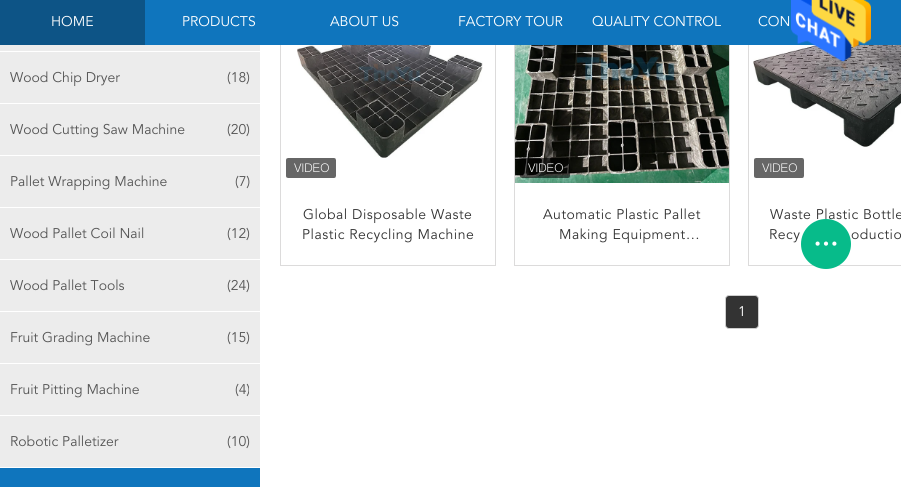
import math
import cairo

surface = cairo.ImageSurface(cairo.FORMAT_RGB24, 901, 487)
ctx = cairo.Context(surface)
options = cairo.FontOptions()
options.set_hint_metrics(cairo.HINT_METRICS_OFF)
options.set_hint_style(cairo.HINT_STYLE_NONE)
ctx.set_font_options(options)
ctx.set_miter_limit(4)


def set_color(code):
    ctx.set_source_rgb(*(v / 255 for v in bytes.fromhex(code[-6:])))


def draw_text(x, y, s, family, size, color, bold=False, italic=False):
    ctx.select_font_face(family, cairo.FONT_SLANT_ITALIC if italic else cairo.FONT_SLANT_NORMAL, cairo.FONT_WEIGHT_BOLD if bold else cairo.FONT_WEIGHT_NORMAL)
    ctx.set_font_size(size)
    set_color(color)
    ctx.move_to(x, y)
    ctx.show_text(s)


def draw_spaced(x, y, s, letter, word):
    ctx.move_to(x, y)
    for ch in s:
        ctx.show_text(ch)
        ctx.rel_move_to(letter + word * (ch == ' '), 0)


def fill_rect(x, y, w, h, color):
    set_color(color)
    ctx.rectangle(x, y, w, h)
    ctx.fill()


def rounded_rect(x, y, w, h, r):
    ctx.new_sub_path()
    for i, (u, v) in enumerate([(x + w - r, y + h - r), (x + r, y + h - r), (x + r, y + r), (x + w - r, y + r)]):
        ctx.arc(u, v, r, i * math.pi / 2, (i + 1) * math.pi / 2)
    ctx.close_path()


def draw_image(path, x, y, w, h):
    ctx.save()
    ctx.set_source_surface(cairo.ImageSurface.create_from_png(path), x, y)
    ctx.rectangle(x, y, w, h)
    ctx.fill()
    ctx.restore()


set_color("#ffffff")
ctx.paint()
ctx.rectangle(280.5, -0.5, 215, 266)
set_color("#dcdbdb")
ctx.set_line_width(1)
ctx.stroke()
ctx.rectangle(514.5, -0.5, 215, 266)
ctx.stroke()
ctx.rectangle(748.5, -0.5, 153, 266)
ctx.stroke()
fill_rect(145, 0, 756, 45, "#0f75bd")
fill_rect(0, 0, 145, 45, "#0d5486")
draw_text(51, 26, "HOME", "Avenir", 14, "#ffffff")
draw_text(182, 26, "PRODUCTS", "Avenir", 14, "#ffffff")
draw_text(330, 26, "ABOUT US", "Avenir", 14, "#ffffff")
draw_text(458, 26, "FACTORY TOUR", "Avenir", 14, "#ffffff")
draw_text(592, 26, "QUALITY CONTROL", "Avenir", 14, "#ffffff")
draw_text(758, 26, "CON", "Avenir", 14, "#ffffff")
draw_image("assets/img6.png", 753, 45, 148, 102)
draw_image("assets/img1.png", 791, 0, 80, 62)
fill_rect(0, 45, 260, 6, "#ececec")
fill_rect(0, 52, 260, 51, "#ececec")
draw_text(10, 82, "Wood Chip Dryer", "Avenir", 14, "#555555")
draw_text(227, 82, "(18)", "Avenir", 14, "#555555")
fill_rect(0, 104, 260, 51, "#ececec")
draw_text(10, 134, "Wood Cutting Saw Machine", "Avenir", 14, "#555555")
draw_text(227, 134, "(20)", "Avenir", 14, "#555555")
fill_rect(0, 156, 260, 51, "#ececec")
draw_text(10, 186, "Pallet Wrapping Machine", "Avenir", 14, "#555555")
draw_text(235, 186, "(7)", "Avenir", 14, "#555555")
fill_rect(0, 208, 260, 51, "#ececec")
draw_text(10, 238, "Wood Pallet Coil Nail", "Avenir", 14, "#555555")
draw_text(227, 238, "(12)", "Avenir", 14, "#555555")
fill_rect(0, 260, 260, 51, "#ececec")
draw_text(10, 290, "Wood Pallet Tools", "Avenir", 14, "#555555")
draw_text(227, 290, "(24)", "Avenir", 14, "#555555")
fill_rect(0, 312, 260, 51, "#ececec")
draw_text(10, 342, "Fruit Grading Machine", "Avenir", 14, "#555555")
draw_text(227, 342, "(15)", "Avenir", 14, "#555555")
fill_rect(0, 364, 260, 51, "#ececec")
draw_text(10, 394, "Fruit Pitting Machine", "Avenir", 14, "#555555")
draw_text(235, 394, "(4)", "Avenir", 14, "#555555")
fill_rect(0, 416, 260, 51, "#ececec")
draw_text(10, 446, "Robotic Palletizer", "Avenir", 14, "#555555")
draw_text(227, 446, "(10)", "Avenir", 14, "#555555")
fill_rect(0, 468, 260, 19, "#0f75bd")
draw_image("assets/img2.png", 297, 45, 186, 113)
draw_image("assets/img3.png", 286, 158, 50, 20)
set_color("#333333")
draw_spaced(303, 219, "Global Disposable Waste", 0.5, 0)
draw_spaced(302, 239, "Plastic Recycling Machine", 0.5, 0)
draw_image("assets/img4.png", 515, 45, 214, 138)
draw_image("assets/img5.png", 520, 158, 50, 20)
draw_spaced(543, 219, "Automatic Plastic Pallet", 0.5, 0)
draw_spaced(559, 239, "Making Equipment…", 0.5, 0)
draw_image("assets/img3.png", 754, 158, 50, 20)
draw_spaced(770, 219, "Waste Plastic Bottle", 0.5, 0)
draw_spaced(769, 239, "Recy", 0.5, 0)
draw_spaced(851, 239, "oductio", 0.5, 0)
rounded_rect(725.5, 295.5, 33, 33, 3.5)
ctx.fill_preserve()
set_color("#cecece")
ctx.stroke()
draw_text(738, 316, "1", "Avenir", 14, "#ffffff")
set_color("#07bb8a")
ctx.new_path()
ctx.arc(826, 244, 25, 0, 2 * math.pi)
ctx.fill()
draw_image("assets/img7.png", 815, 241, 22, 5)
surface.write_to_png("output.png")
